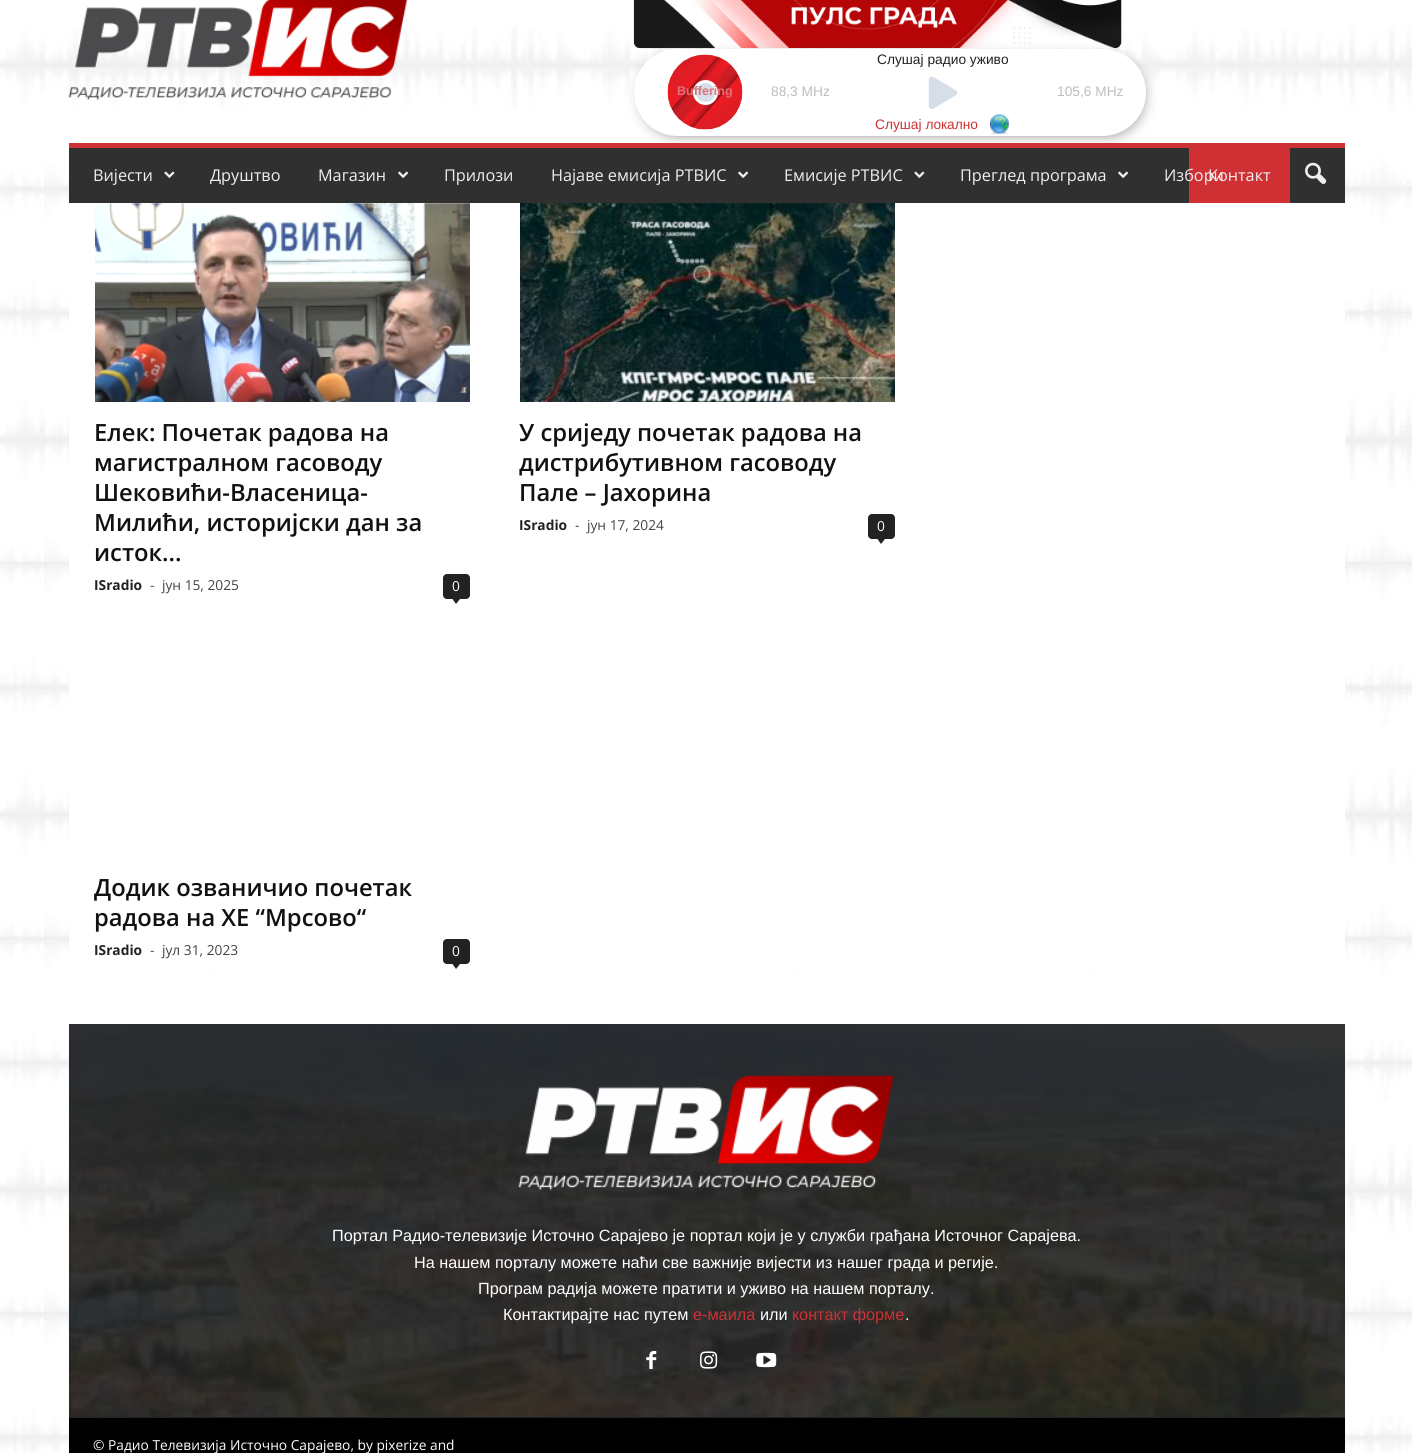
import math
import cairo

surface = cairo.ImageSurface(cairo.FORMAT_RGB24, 1412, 1453)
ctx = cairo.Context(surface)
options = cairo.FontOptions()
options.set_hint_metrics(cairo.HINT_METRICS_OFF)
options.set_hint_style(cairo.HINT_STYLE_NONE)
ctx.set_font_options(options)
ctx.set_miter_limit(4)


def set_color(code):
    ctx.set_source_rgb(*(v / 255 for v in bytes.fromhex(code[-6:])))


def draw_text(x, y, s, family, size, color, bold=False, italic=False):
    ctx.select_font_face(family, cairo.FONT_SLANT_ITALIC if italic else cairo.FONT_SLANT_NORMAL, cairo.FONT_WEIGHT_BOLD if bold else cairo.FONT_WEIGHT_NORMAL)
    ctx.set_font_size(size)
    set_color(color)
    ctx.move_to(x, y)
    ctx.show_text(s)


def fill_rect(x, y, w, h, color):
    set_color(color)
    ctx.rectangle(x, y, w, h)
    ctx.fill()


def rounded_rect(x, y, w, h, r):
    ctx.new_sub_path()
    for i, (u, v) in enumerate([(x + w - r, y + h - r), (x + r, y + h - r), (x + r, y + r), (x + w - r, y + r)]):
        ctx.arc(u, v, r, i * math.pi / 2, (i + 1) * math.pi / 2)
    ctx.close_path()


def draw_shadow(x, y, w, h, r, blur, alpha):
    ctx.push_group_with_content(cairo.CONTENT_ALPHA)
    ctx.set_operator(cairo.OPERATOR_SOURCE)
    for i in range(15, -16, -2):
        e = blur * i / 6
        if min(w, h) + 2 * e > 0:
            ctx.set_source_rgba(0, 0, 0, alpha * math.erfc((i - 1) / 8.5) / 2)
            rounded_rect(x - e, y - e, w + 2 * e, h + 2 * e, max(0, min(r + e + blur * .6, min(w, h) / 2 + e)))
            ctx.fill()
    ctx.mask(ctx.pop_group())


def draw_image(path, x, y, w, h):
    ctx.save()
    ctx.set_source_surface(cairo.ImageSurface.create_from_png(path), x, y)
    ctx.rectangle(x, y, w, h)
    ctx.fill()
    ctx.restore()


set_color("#ffffff")
ctx.paint()
draw_image("assets/img1.png", 0, 26, 1412, 1427)
draw_image("assets/img2.png", 68, 0, 340, 100)
draw_image("assets/img3.png", 633, 0, 489, 49)
draw_image("assets/img4.png", 1121, 0, 1, 45)
set_color("#656565")
draw_shadow(644, 60, 497, 73, 36.5, 7.5, 1)
set_color("#ffffff")
rounded_rect(634, 49, 512, 87, 43.5)
ctx.fill()
draw_image("assets/img5.png", 667, 54, 76, 76)
set_color("#d6dee7")
ctx.arc(705.5, 92.5, 11, 0, 2 * math.pi)
ctx.fill_preserve()
set_color("#ffffff")
ctx.set_line_width(3)
ctx.stroke()
draw_text(677, 95, "Buffering", "Liberation Sans", 12.5, "#dc7279", bold=True)
draw_text(877, 64, "Слушај радио уживо", "Liberation Sans", 13.75, "#222222")
draw_text(771, 96, "88,3 MHz", "Liberation Sans", 13.75, "#bdbdbd")
draw_image("assets/img6.png", 928, 76, 30, 33)
draw_text(1057, 96, "105,6 MHz", "Liberation Sans", 13.75, "#bdbdbd")
draw_text(875, 129, "Слушај локално", "Liberation Sans", 13.75, "#cf3033")
draw_image("assets/img7.png", 990, 114, 19, 21)
fill_rect(69, 148, 1276, 55, "#303030")
fill_rect(69, 143, 1276, 5, "#cf3033")
draw_text(93, 181, "Вијести", "Open Sans", 16.25, "#efefef")
draw_image("assets/img8.png", 164, 171, 11, 7)
draw_text(210, 181, "Друштво", "Open Sans", 16.25, "#efefef")
draw_text(318, 181, "Магазин", "Open Sans", 16.25, "#efefef")
draw_image("assets/img9.png", 398, 171, 11, 7)
draw_text(444, 181, "Прилози", "Open Sans", 16.25, "#efefef")
draw_text(551, 181, "Најаве емисија РТВИС", "Open Sans", 16.25, "#efefef")
draw_image("assets/img9.png", 738, 171, 11, 7)
draw_text(784, 181, "Емисије РТВИС", "Open Sans", 16.25, "#efefef")
draw_image("assets/img8.png", 914, 171, 11, 7)
draw_text(960, 181, "Преглед програма", "Open Sans", 16.25, "#efefef")
draw_image("assets/img9.png", 1118, 171, 11, 7)
fill_rect(1189, 148, 101, 55, "#cf3033")
draw_text(1208, 181, "Контакт", "Open Sans", 16.25, "#efefef")
draw_text(1164, 181, "Избори", "Open Sans", 16.25, "#efefef")
draw_image("assets/img10.png", 1305, 162, 22, 22)
fill_rect(69, 203, 1276, 769, "#ffffff")
draw_image("assets/img11.png", 95, 203, 375, 199)
draw_text(94, 441, "Елек: Почетак радова на", "Open Sans SemiBold", 23.75, "#111111")
draw_text(94, 471, "магистралном гасоводу", "Open Sans SemiBold", 23.75, "#111111")
draw_text(94, 501, "Шековићи-Власеница-", "Open Sans SemiBold", 23.75, "#111111")
draw_text(94, 531, "Милићи, историјски дан за", "Open Sans SemiBold", 23.75, "#111111")
draw_text(94, 561, "исток...", "Open Sans SemiBold", 23.75, "#111111")
draw_text(94, 590, "ISradio", "Open Sans", 13.75, "#222222", bold=True)
draw_text(150, 590, "-", "Open Sans", 13.75, "#444444")
draw_text(162, 590, "јун 15, 2025", "Open Sans", 13.75, "#444444")
set_color("#222222")
rounded_rect(443, 574, 27, 25, 4)
ctx.fill()
draw_text(452, 591, "0", "Open Sans", 13.75, "#ffffff")
set_color("#222222")
ctx.new_path()
ctx.move_to(452.5, 599)
ctx.line_to(460, 599)
ctx.line_to(456, 604)
ctx.close_path()
ctx.fill()
draw_image("assets/img12.png", 520, 203, 375, 199)
draw_text(519, 441, "У сриједу почетак радова на", "Open Sans SemiBold", 23.75, "#111111")
draw_text(519, 471, "дистрибутивном гасоводу", "Open Sans SemiBold", 23.75, "#111111")
draw_text(519, 501, "Пале – Јахорина", "Open Sans SemiBold", 23.75, "#111111")
draw_text(519, 530, "ISradio", "Open Sans", 13.75, "#222222", bold=True)
draw_text(575, 530, "-", "Open Sans", 13.75, "#444444")
draw_text(587, 530, "јун 17, 2024", "Open Sans", 13.75, "#444444")
set_color("#222222")
rounded_rect(868, 514, 27, 25, 4)
ctx.fill()
draw_text(877, 531, "0", "Open Sans", 13.75, "#ffffff")
set_color("#222222")
ctx.new_path()
ctx.move_to(877.5, 539)
ctx.line_to(885, 539)
ctx.line_to(881, 544)
ctx.close_path()
ctx.fill()
draw_text(94, 896, "Додик озваничио почетак", "Open Sans SemiBold", 23.75, "#111111")
draw_text(94, 926, "радова на ХЕ “Мрсово“", "Open Sans SemiBold", 23.75, "#111111")
draw_text(94, 955, "ISradio", "Open Sans", 13.75, "#222222", bold=True)
draw_text(150, 955, "-", "Open Sans", 13.75, "#444444")
draw_text(162, 955, "јул 31, 2023", "Open Sans", 13.75, "#444444")
set_color("#222222")
rounded_rect(443, 939, 27, 25, 4)
ctx.fill()
draw_text(452, 956, "0", "Open Sans", 13.75, "#ffffff")
set_color("#222222")
ctx.new_path()
ctx.move_to(452.5, 964)
ctx.line_to(460, 964)
ctx.line_to(456, 969)
ctx.close_path()
ctx.fill()
fill_rect(69, 1024, 1276, 394, "#222222")
draw_image("assets/img13.png", 68, 1024, 1277, 393)
draw_image("assets/img14.png", 518, 1075, 376, 115)
draw_text(332, 1241, "Портал Радио-телевизије Источно Сарајево је портал који је у служби грађана Источног Сарајева.", "Liberation Sans", 16.25, "#ffffff")
draw_text(414, 1268, "На нашем порталу можете наћи све важније вијести из нашег града и регије.", "Liberation Sans", 16.25, "#ffffff")
draw_text(478, 1294, "Програм радија можете пратити и уживо на нашем порталу.", "Liberation Sans", 16.25, "#ffffff")
draw_text(503, 1320, "Контактирајте нас путем", "Liberation Sans", 16.25, "#ffffff")
draw_text(693, 1320, "е-маила", "Liberation Sans", 16.25, "#cf3033")
draw_text(760, 1320, "или", "Liberation Sans", 16.25, "#ffffff")
draw_text(792, 1320, "контакт форме", "Liberation Sans", 16.25, "#cf3033")
draw_text(905, 1320, ".", "Liberation Sans", 16.25, "#ffffff")
draw_image("assets/img15.png", 646, 1351, 11, 18)
draw_image("assets/img16.png", 700, 1351, 18, 18)
draw_image("assets/img17.png", 756, 1352, 21, 16)
fill_rect(69, 1418, 1276, 35, "#000000")
draw_text(93, 1450, "© Радио Телевизија Источно Сарајево, by pixerize and", "Open Sans", 13.75, "#ffffff")
draw_image("assets/img18.png", 1371, 1423, 22, 8)
surface.write_to_png("output.png")
